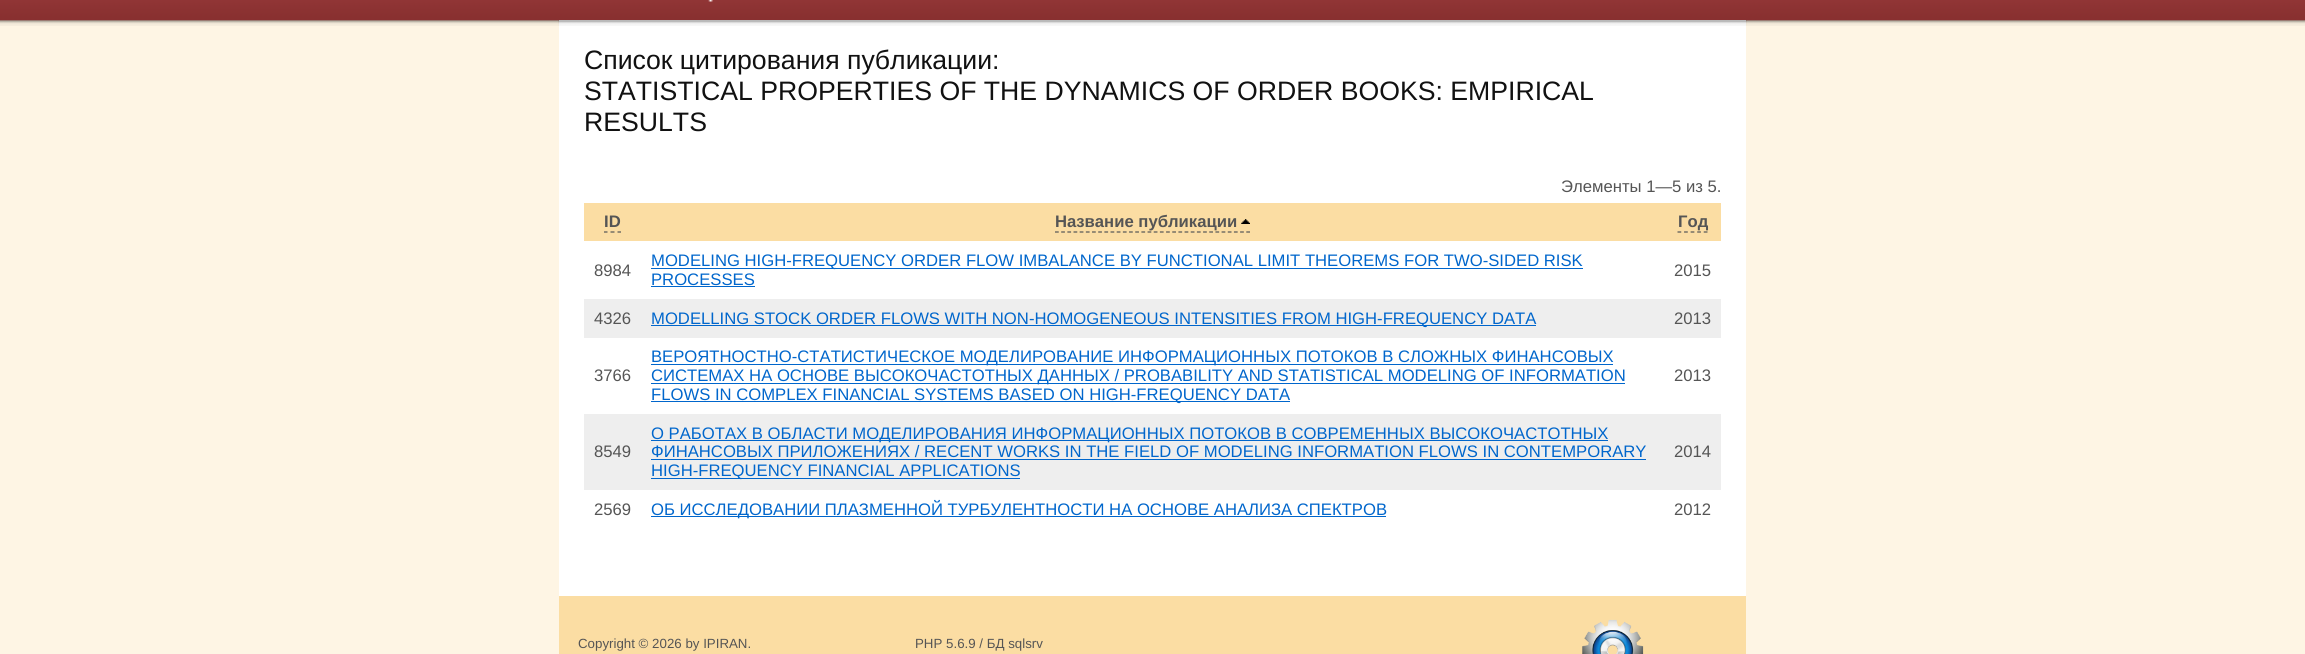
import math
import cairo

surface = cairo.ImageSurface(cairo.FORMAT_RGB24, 2305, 654)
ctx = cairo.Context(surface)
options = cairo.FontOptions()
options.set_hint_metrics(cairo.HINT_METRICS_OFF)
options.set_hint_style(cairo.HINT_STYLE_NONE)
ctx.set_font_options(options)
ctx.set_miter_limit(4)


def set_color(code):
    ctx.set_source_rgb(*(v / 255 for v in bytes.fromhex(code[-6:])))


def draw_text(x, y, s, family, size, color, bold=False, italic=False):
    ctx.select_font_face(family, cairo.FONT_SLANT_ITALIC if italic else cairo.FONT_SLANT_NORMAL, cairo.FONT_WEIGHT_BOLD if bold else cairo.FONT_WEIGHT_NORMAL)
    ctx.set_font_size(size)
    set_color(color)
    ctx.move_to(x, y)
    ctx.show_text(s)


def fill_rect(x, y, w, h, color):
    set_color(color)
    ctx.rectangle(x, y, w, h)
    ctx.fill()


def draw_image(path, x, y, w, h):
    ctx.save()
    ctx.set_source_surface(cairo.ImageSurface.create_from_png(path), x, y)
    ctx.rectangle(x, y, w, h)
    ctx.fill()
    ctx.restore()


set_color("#fef5e4")
ctx.paint()
draw_image("assets/img1.png", 0, 0, 2305, 26)
draw_image("assets/img2.png", 708, 0, 5, 2)
fill_rect(559, 20, 1187, 576, "#ffffff")
draw_image("assets/img3.png", 558, 20, 1189, 6)
draw_text(584, 69, "Список цитирования публикации:", "Liberation Sans", 26.65, "#111111")
draw_text(584, 100, "STATISTICAL PROPERTIES OF THE DYNAMICS OF ORDER BOOKS: EMPIRICAL", "Liberation Sans", 26.65, "#111111")
draw_text(584, 131, "RESULTS", "Liberation Sans", 26.65, "#111111")
draw_text(1561, 192, "Элементы 1—5 из 5.", "Liberation Sans", 16.67, "#555555")
fill_rect(584, 203, 1137, 38, "#fbdda3")
draw_text(604, 227, "ID", "Liberation Sans", 16.67, "#555555", bold=True)
ctx.new_path()
ctx.move_to(604, 232)
ctx.line_to(607.5, 232)
ctx.move_to(610.5, 232)
ctx.line_to(614.5, 232)
ctx.move_to(617.5, 232)
ctx.line_to(621, 232)
ctx.set_line_width(1.2)
ctx.stroke()
draw_text(1055, 227, "Название публикации", "Liberation Sans", 16.67, "#555555", bold=True)
ctx.new_path()
ctx.move_to(1055, 232)
ctx.line_to(1250, 232)
ctx.set_dash([3.75, 2.42])
ctx.stroke()
draw_image("assets/img4.png", 1241, 219, 9, 5)
draw_text(1678, 227, "Год", "Liberation Sans", 16.67, "#555555", bold=True)
ctx.new_path()
ctx.move_to(1677.5, 232)
ctx.line_to(1707.5, 232)
ctx.set_dash([3.75, 2.81])
ctx.stroke()
draw_text(594, 276, "8984", "Liberation Sans", 16.67, "#555555")
fill_rect(651, 268, 932, 1, "#0066cc")
draw_text(651, 266, "MODELING HIGH-FREQUENCY ORDER FLOW IMBALANCE BY FUNCTIONAL LIMIT THEOREMS FOR TWO-SIDED RISK", "Liberation Sans", 16.67, "#0066cc")
draw_text(651, 285, "PROCESSES", "Liberation Sans", 16.67, "#0066cc")
fill_rect(651, 286, 104, 1, "#0066cc")
draw_text(1674, 276, "2015", "Liberation Sans", 16.67, "#555555")
fill_rect(584, 299, 1137, 39, "#eeeeee")
draw_text(594, 324, "4326", "Liberation Sans", 16.67, "#555555")
fill_rect(651, 325, 885, 1, "#0066cc")
draw_text(651, 324, "MODELLING STOCK ORDER FLOWS WITH NON-HOMOGENEOUS INTENSITIES FROM HIGH-FREQUENCY DATA", "Liberation Sans", 16.67, "#0066cc")
draw_text(1674, 324, "2013", "Liberation Sans", 16.67, "#555555")
draw_text(594, 381, "3766", "Liberation Sans", 16.67, "#555555")
fill_rect(651, 364, 962, 1, "#0066cc")
draw_text(651, 362, "ВЕРОЯТНОСТНО-СТАТИСТИЧЕСКОЕ МОДЕЛИРОВАНИЕ ИНФОРМАЦИОННЫХ ПОТОКОВ В СЛОЖНЫХ ФИНАНСОВЫХ", "Liberation Sans", 16.67, "#0066cc")
fill_rect(651, 383, 974, 1, "#0066cc")
draw_text(651, 381, "СИСТЕМАХ НА ОСНОВЕ ВЫСОКОЧАСТОТНЫХ ДАННЫХ / PROBABILITY AND STATISTICAL MODELING OF INFORMATION", "Liberation Sans", 16.67, "#0066cc")
fill_rect(651, 401, 639, 1, "#0066cc")
draw_text(651, 400, "FLOWS IN COMPLEX FINANCIAL SYSTEMS BASED ON HIGH-FREQUENCY DATA", "Liberation Sans", 16.67, "#0066cc")
draw_text(1674, 381, "2013", "Liberation Sans", 16.67, "#555555")
fill_rect(584, 414, 1137, 76, "#eeeeee")
draw_text(594, 457, "8549", "Liberation Sans", 16.67, "#555555")
fill_rect(651, 440, 957, 1, "#0066cc")
draw_text(651, 439, "О РАБОТАХ В ОБЛАСТИ МОДЕЛИРОВАНИЯ ИНФОРМАЦИОННЫХ ПОТОКОВ В СОВРЕМЕННЫХ ВЫСОКОЧАСТОТНЫХ", "Liberation Sans", 16.67, "#0066cc")
draw_text(651, 457, "ФИНАНСОВЫХ ПРИЛОЖЕНИЯХ / RECENT WORKS IN THE FIELD OF MODELING INFORMATION FLOWS IN CONTEMPORARY", "Liberation Sans", 16.67, "#0066cc")
fill_rect(651, 459, 995, 1, "#0066cc")
fill_rect(651, 478, 369, 1, "#0066cc")
draw_text(651, 476, "HIGH-FREQUENCY FINANCIAL APPLICATIONS", "Liberation Sans", 16.67, "#0066cc")
draw_text(1674, 457, "2014", "Liberation Sans", 16.67, "#555555")
draw_text(594, 515, "2569", "Liberation Sans", 16.67, "#555555")
fill_rect(651, 516, 735, 1, "#0066cc")
draw_text(651, 515, "ОБ ИССЛЕДОВАНИИ ПЛАЗМЕННОЙ ТУРБУЛЕНТНОСТИ НА ОСНОВЕ АНАЛИЗА СПЕКТРОВ", "Liberation Sans", 16.67, "#0066cc")
draw_text(1674, 515, "2012", "Liberation Sans", 16.67, "#555555")
fill_rect(559, 596, 1187, 58, "#fbdda3")
draw_text(578, 648, "Copyright © 2026 by IPIRAN.", "Liberation Sans", 13.3, "#555555")
draw_text(915, 648, "PHP 5.6.9 / БД sqlsrv", "Liberation Sans", 13.3, "#555555")
draw_image("assets/img5.png", 1582, 619, 62, 35)
surface.write_to_png("output.png")
